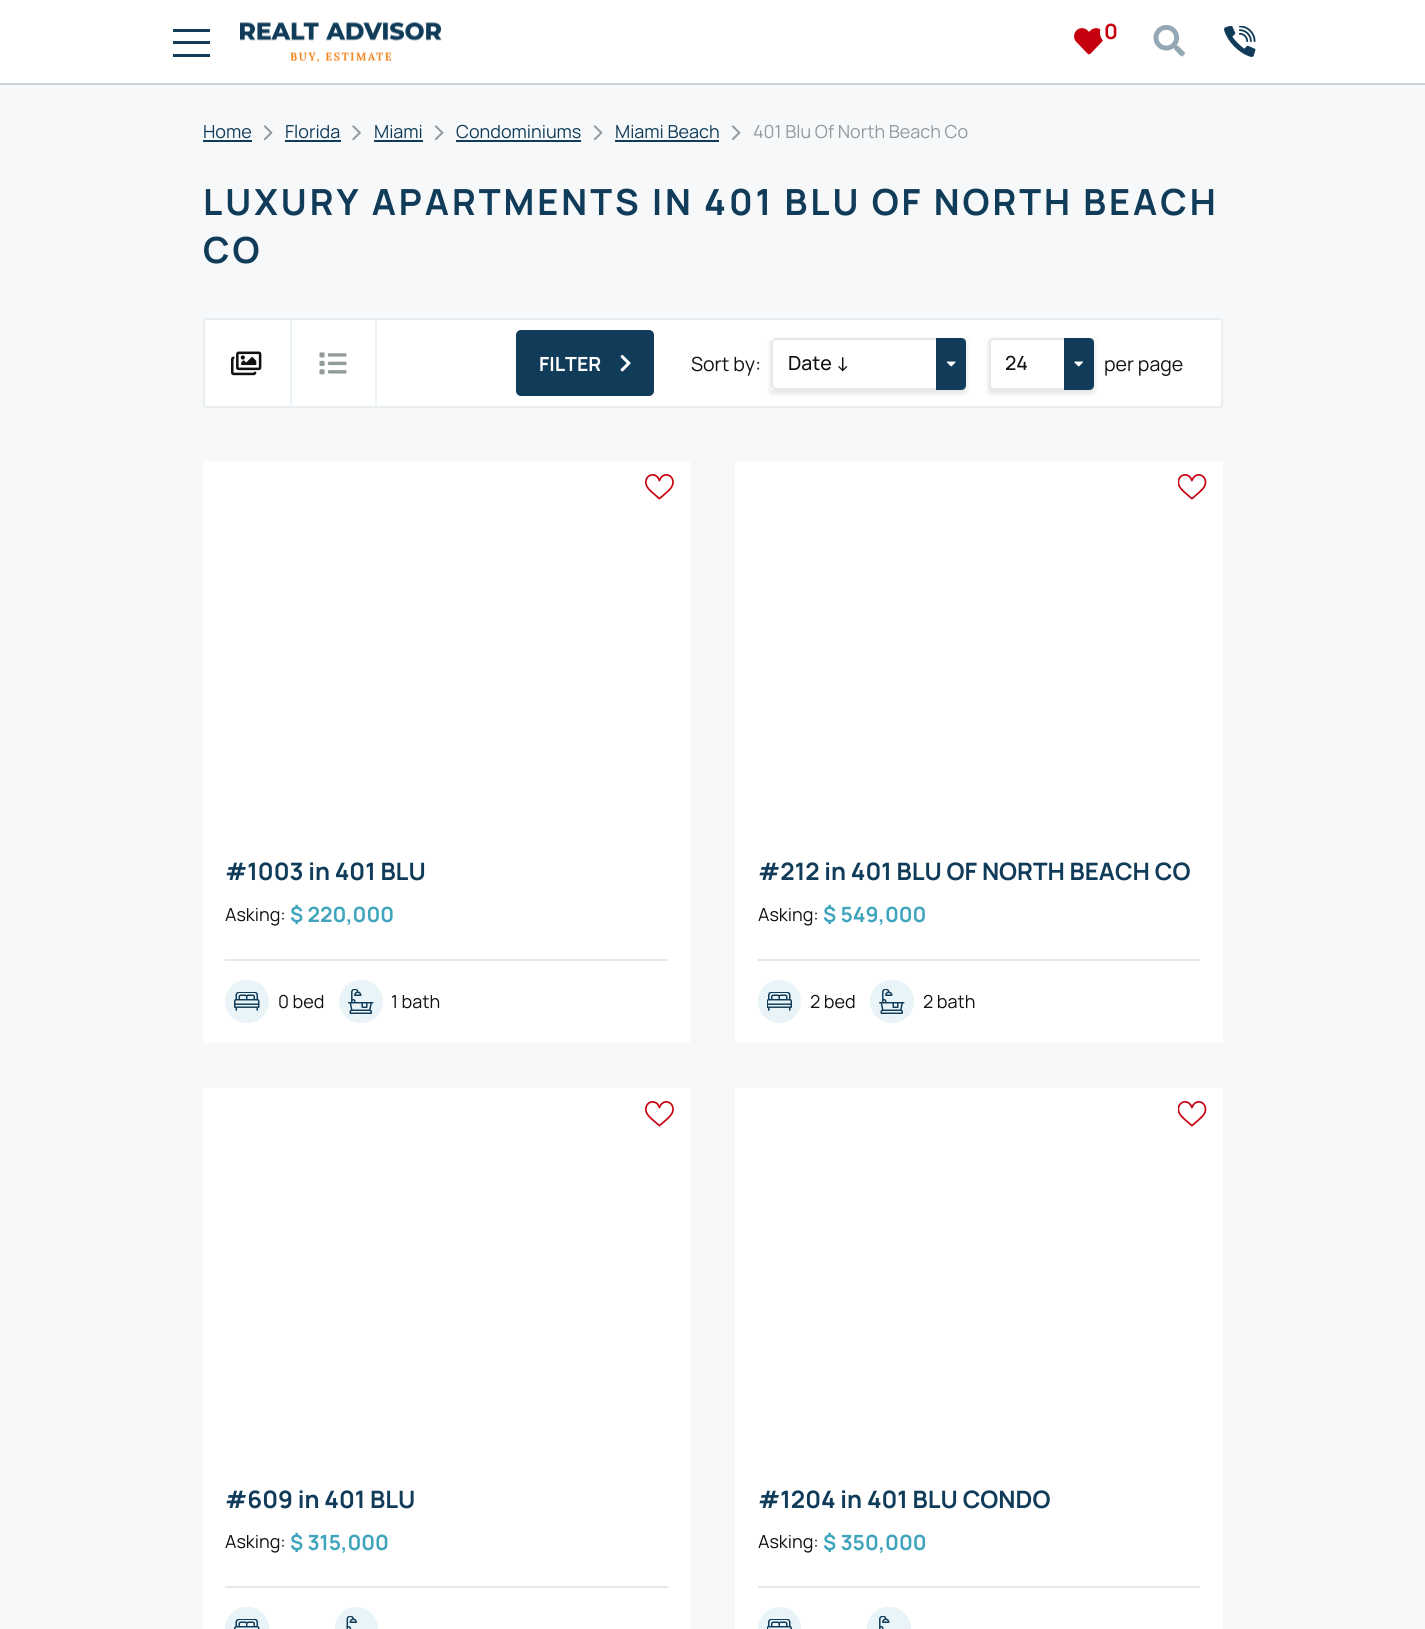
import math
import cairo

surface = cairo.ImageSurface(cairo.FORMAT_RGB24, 1425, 1629)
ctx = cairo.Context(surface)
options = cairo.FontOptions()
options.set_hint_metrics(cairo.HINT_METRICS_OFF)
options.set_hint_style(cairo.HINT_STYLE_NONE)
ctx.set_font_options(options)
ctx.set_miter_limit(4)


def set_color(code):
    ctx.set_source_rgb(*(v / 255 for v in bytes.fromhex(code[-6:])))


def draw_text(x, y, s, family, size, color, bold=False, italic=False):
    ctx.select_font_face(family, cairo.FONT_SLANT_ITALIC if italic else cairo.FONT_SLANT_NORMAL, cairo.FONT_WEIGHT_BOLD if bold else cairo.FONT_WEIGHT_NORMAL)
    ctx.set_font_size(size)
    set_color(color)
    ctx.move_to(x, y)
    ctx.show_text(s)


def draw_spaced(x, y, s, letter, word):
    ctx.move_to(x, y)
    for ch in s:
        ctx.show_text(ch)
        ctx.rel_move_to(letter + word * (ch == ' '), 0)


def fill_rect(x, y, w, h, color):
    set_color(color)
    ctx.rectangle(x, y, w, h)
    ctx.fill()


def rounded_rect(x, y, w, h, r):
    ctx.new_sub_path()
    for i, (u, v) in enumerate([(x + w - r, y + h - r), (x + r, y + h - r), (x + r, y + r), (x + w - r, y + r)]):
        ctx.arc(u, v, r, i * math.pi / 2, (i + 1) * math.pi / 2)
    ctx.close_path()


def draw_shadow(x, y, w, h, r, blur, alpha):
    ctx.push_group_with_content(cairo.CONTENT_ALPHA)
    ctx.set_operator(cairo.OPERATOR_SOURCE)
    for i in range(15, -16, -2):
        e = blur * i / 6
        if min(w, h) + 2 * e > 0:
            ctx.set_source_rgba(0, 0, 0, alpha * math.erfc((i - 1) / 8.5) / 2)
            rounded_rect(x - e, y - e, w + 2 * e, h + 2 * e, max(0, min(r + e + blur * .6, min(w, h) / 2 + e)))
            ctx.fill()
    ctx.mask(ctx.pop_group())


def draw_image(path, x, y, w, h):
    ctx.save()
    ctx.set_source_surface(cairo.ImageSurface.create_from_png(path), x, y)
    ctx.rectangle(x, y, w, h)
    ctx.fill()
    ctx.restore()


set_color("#f7f8f9")
ctx.paint()
fill_rect(0, 84, 1425, 1, "#c9d2d9")
fill_rect(0, 0, 1425, 83, "#ffffff")
fill_rect(0, 83, 1425, 1, "#cfd8de")
fill_rect(173, 29, 37, 3, "#103c5a")
fill_rect(173, 41, 37, 3, "#103c5a")
fill_rect(173, 54, 37, 3, "#103c5a")
draw_image("assets/img1.png", 240, 22, 202, 41)
draw_image("assets/img2.png", 1074, 28, 30, 27)
set_color("#ffffff")
rounded_rect(1100, 21, 22, 23, 11)
ctx.fill()
draw_text(1104, 39, "0", "Manrope", 21, "#c7000f", bold=True)
draw_image("assets/img3.png", 1153, 24, 32, 33)
draw_image("assets/img4.png", 1224, 26, 32, 31)
draw_text(203, 138, "Home", "Manrope", 18, "#103c5a")
fill_rect(203, 140, 49, 2, "#103c5a")
draw_image("assets/img5.png", 263, 125, 10, 16)
draw_text(285, 138, "Florida", "Manrope", 18, "#103c5a")
fill_rect(285, 140, 56, 2, "#103c5a")
draw_image("assets/img6.png", 352, 125, 9, 16)
draw_text(374, 138, "Miami", "Manrope", 18, "#103c5a")
fill_rect(374, 140, 49, 2, "#103c5a")
draw_image("assets/img5.png", 434, 125, 10, 16)
draw_text(456, 138, "Condominiums", "Manrope", 18, "#103c5a")
fill_rect(456, 140, 125, 2, "#103c5a")
draw_image("assets/img5.png", 593, 125, 10, 16)
draw_text(615, 138, "Miami Beach", "Manrope", 18, "#103c5a")
fill_rect(615, 140, 104, 2, "#103c5a")
draw_image("assets/img5.png", 731, 125, 10, 16)
draw_text(753, 138, "401 Blu Of North Beach Co", "Manrope", 18, "#929a9c")
ctx.select_font_face("Manrope", cairo.FONT_SLANT_NORMAL, cairo.FONT_WEIGHT_BOLD)
ctx.set_font_size(36)
set_color("#103c5a")
draw_spaced(203, 215, "LUXURY APARTMENTS IN 401 BLU OF NORTH BEACH", 3, 0)
draw_spaced(203, 263, "CO", 3, 0)
set_color("#ffffff")
rounded_rect(204, 319, 1018, 88, 2)
ctx.fill_preserve()
set_color("#e9edef")
ctx.stroke()
fill_rect(290, 320, 2, 87, "#e8f4f7")
draw_image("assets/img7.png", 231, 351, 31, 25)
fill_rect(375, 320, 2, 87, "#e8f4f7")
draw_image("assets/img8.png", 319, 352, 28, 23)
set_color("#103c5a")
rounded_rect(516, 330, 138, 66, 5)
ctx.fill()
draw_text(539, 371, "FILTER", "Manrope", 19.5, "#ffffff", bold=True)
draw_image("assets/img9.png", 620, 354, 11, 18)
draw_text(691, 371, "Sort by:", "Manrope", 19.5, "#111111")
ctx.save()
ctx.set_fill_rule(cairo.FILL_RULE_EVEN_ODD)
ctx.new_path()
ctx.move_to(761, 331)
ctx.line_to(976, 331)
ctx.line_to(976, 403)
ctx.line_to(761, 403)
ctx.close_path()
ctx.move_to(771, 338)
ctx.line_to(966, 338)
ctx.line_to(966, 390)
ctx.line_to(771, 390)
ctx.close_path()
ctx.clip()
set_color("#000000")
draw_shadow(771, 341, 195, 52, 0, 3, 0.12)
ctx.restore()
ctx.new_path()
ctx.move_to(776, 339)
ctx.line_to(965, 339)
ctx.line_to(965, 389)
ctx.line_to(776, 389)
ctx.curve_to(774, 389, 772, 387, 772, 385)
ctx.line_to(772, 343)
ctx.curve_to(772, 341, 774, 339, 776, 339)
ctx.close_path()
set_color("#e4e8ea")
ctx.stroke()
draw_text(788, 370, "Date ↓", "Manrope Medium", 19.5, "#111111")
set_color("#103c5a")
ctx.new_path()
ctx.move_to(936, 338)
ctx.line_to(961, 338)
ctx.curve_to(964, 338, 966, 340, 966, 343)
ctx.line_to(966, 385)
ctx.curve_to(966, 388, 964, 390, 961, 390)
ctx.line_to(936, 390)
ctx.close_path()
ctx.fill()
draw_image("assets/img10.png", 946, 361, 10, 6)
set_color("#000000")
draw_shadow(989, 341, 105, 52, 0, 3, 0.12)
set_color("#ffffff")
ctx.new_path()
ctx.move_to(994, 339)
ctx.line_to(1093, 339)
ctx.line_to(1093, 389)
ctx.line_to(994, 389)
ctx.curve_to(992, 389, 990, 387, 990, 385)
ctx.line_to(990, 343)
ctx.curve_to(990, 341, 992, 339, 994, 339)
ctx.close_path()
ctx.fill_preserve()
set_color("#e4e8ea")
ctx.stroke()
draw_text(1005, 370, "24", "Manrope Medium", 19.5, "#111111")
set_color("#103c5a")
ctx.new_path()
ctx.move_to(1064, 338)
ctx.line_to(1089, 338)
ctx.curve_to(1092, 338, 1094, 340, 1094, 343)
ctx.line_to(1094, 385)
ctx.curve_to(1094, 388, 1092, 390, 1089, 390)
ctx.line_to(1064, 390)
ctx.close_path()
ctx.fill()
draw_image("assets/img11.png", 1074, 361, 9, 6)
draw_text(1104, 371, "per page", "Manrope", 19.5, "#111111")
fill_rect(203, 461, 487, 582, "#ffffff")
draw_image("assets/img12.png", 645, 474, 29, 26)
draw_text(225, 880, "#1003 in 401 BLU", "Manrope", 24, "#103c5a", bold=True)
draw_text(225, 921, "Asking:", "Manrope", 18, "#111111")
draw_text(290, 922, "$ 220,000", "Manrope", 21, "#40a5bc", bold=True)
fill_rect(225, 959, 443, 2, "#e4e8ea")
set_color("#e8f4f7")
rounded_rect(225, 980, 44, 43, 21.5)
ctx.fill()
draw_image("assets/img13.png", 234, 992, 26, 19)
draw_text(278, 1008, "0 bed", "Manrope", 18, "#111111")
set_color("#e8f4f7")
rounded_rect(339, 980, 44, 43, 21.5)
ctx.fill()
draw_image("assets/img14.png", 348, 989, 26, 25)
draw_text(391, 1008, "1 bath", "Manrope", 18, "#111111")
fill_rect(735, 461, 488, 582, "#ffffff")
draw_image("assets/img15.png", 1178, 474, 29, 26)
draw_text(758, 880, "#212 in 401 BLU OF NORTH BEACH CO", "Manrope", 24, "#103c5a", bold=True)
draw_text(758, 921, "Asking:", "Manrope", 18, "#111111")
draw_text(823, 922, "$ 549,000", "Manrope", 21, "#40a5bc", bold=True)
fill_rect(758, 959, 442, 2, "#e4e8ea")
set_color("#e8f4f7")
ctx.new_path()
ctx.arc(779.5, 1001.5, 21.5, 0, 2 * math.pi)
ctx.fill()
draw_image("assets/img16.png", 767, 992, 25, 19)
draw_text(810, 1008, "2 bed", "Manrope", 18, "#111111")
set_color("#e8f4f7")
rounded_rect(870, 980, 44, 43, 21.5)
ctx.fill()
draw_image("assets/img14.png", 879, 989, 26, 25)
draw_text(923, 1008, "2 bath", "Manrope", 18, "#111111")
fill_rect(203, 1088, 487, 541, "#ffffff")
draw_image("assets/img12.png", 645, 1101, 29, 26)
draw_text(225, 1508, "#609 in 401 BLU", "Manrope", 24, "#103c5a", bold=True)
draw_text(225, 1548, "Asking:", "Manrope", 18, "#111111")
draw_text(290, 1550, "$ 315,000", "Manrope", 21, "#40a5bc", bold=True)
fill_rect(225, 1586, 443, 2, "#e4e8ea")
set_color("#e8f4f7")
rounded_rect(225, 1607, 44, 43, 21.5)
ctx.fill()
draw_image("assets/img17.png", 234, 1619, 26, 10)
ctx.arc(356.5, 1628.5, 21.5, 0, 2 * math.pi)
ctx.fill()
draw_image("assets/img18.png", 346, 1616, 11, 13)
fill_rect(735, 1088, 488, 541, "#ffffff")
draw_image("assets/img15.png", 1178, 1101, 29, 26)
draw_text(758, 1508, "#1204 in 401 BLU CONDO", "Manrope", 24, "#103c5a", bold=True)
draw_text(758, 1548, "Asking:", "Manrope", 18, "#111111")
draw_text(823, 1550, "$ 350,000", "Manrope", 21, "#40a5bc", bold=True)
fill_rect(758, 1586, 442, 2, "#e4e8ea")
set_color("#e8f4f7")
ctx.new_path()
ctx.arc(779.5, 1628.5, 21.5, 0, 2 * math.pi)
ctx.fill()
draw_image("assets/img19.png", 767, 1619, 25, 10)
rounded_rect(867, 1607, 44, 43, 21.5)
ctx.fill()
draw_image("assets/img20.png", 879, 1616, 11, 13)
surface.write_to_png("output.png")
